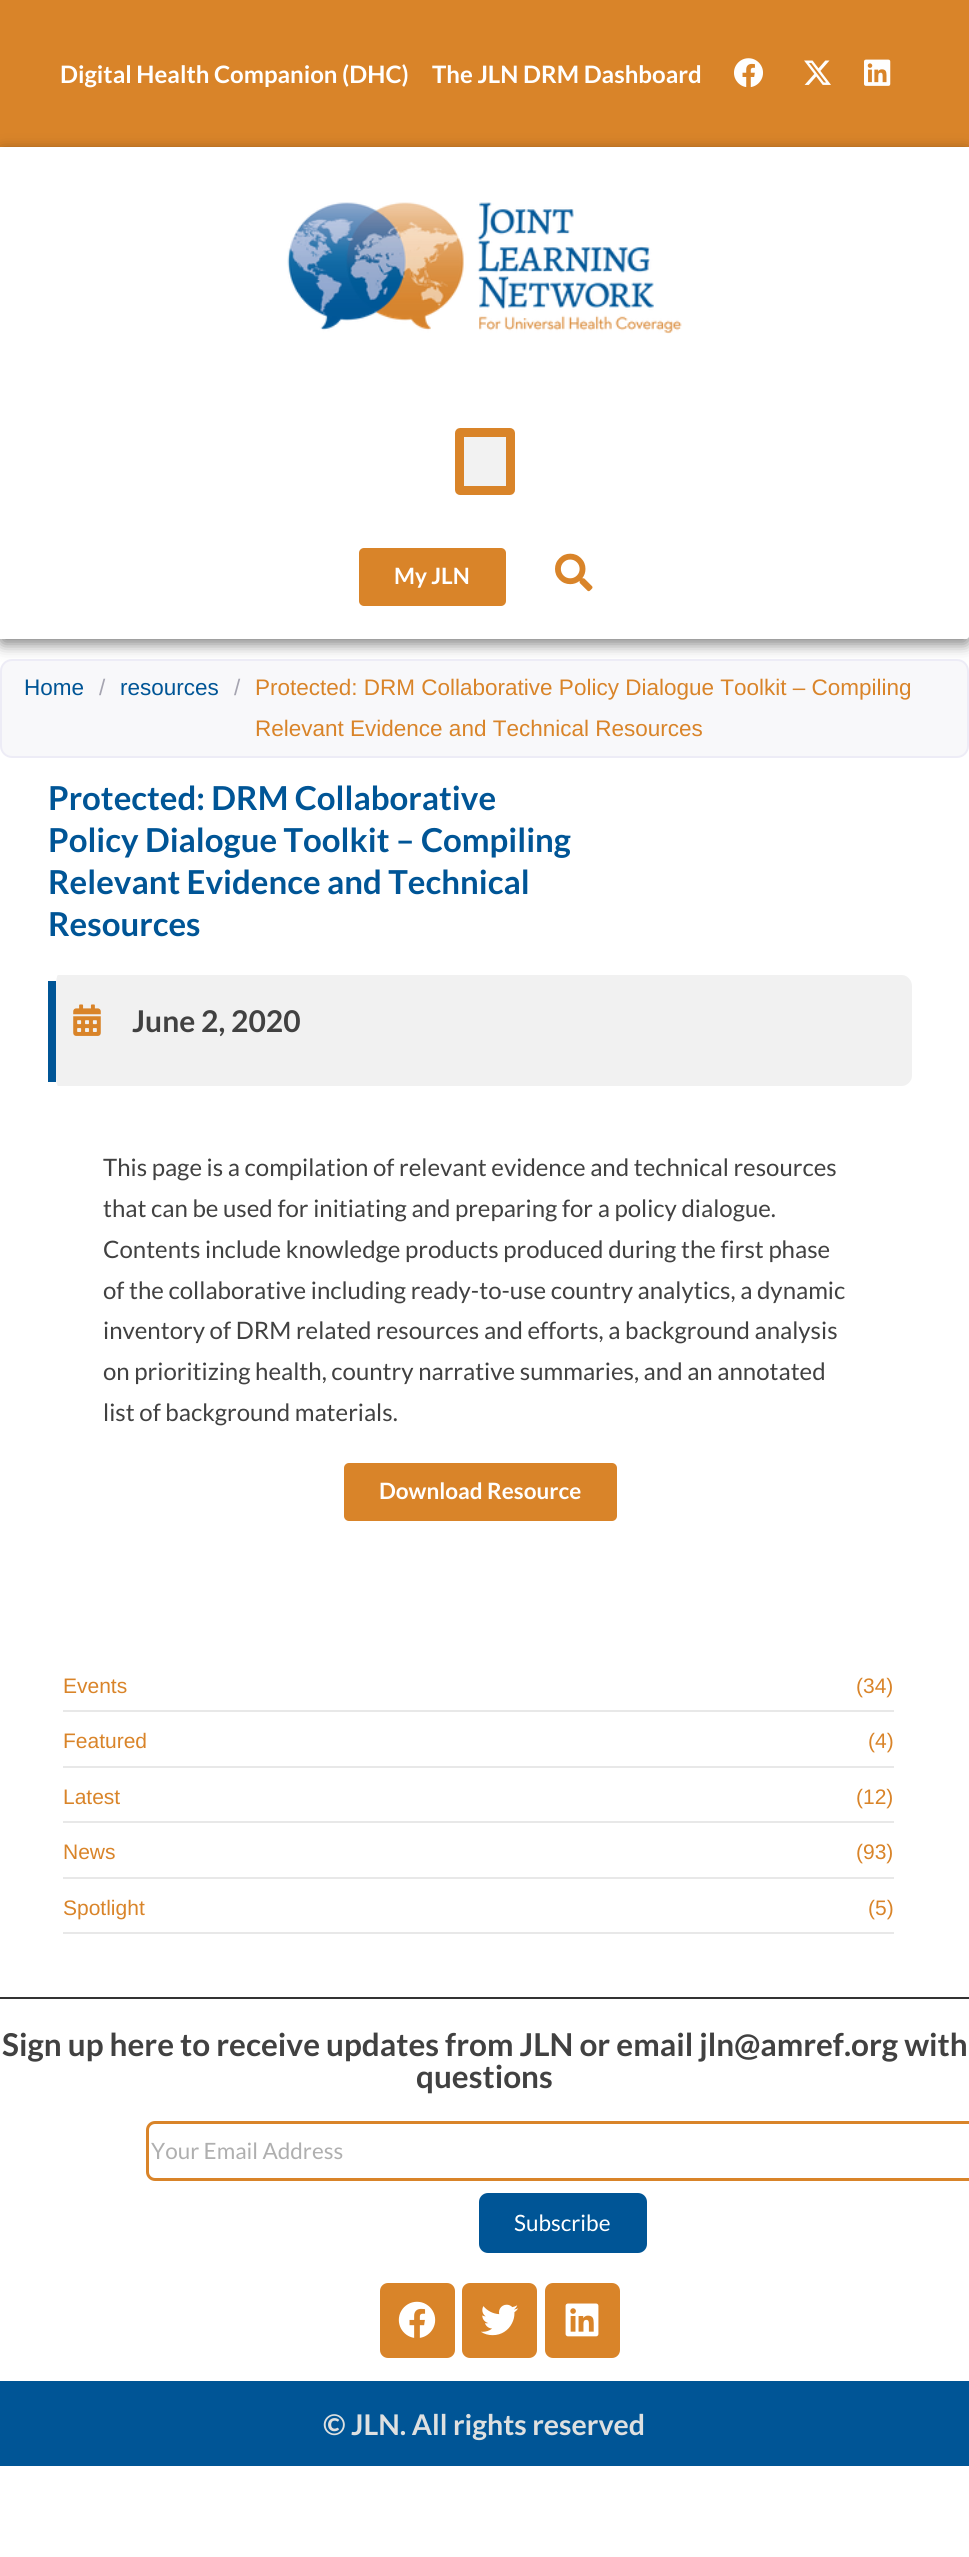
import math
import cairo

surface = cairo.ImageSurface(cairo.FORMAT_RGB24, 969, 2557)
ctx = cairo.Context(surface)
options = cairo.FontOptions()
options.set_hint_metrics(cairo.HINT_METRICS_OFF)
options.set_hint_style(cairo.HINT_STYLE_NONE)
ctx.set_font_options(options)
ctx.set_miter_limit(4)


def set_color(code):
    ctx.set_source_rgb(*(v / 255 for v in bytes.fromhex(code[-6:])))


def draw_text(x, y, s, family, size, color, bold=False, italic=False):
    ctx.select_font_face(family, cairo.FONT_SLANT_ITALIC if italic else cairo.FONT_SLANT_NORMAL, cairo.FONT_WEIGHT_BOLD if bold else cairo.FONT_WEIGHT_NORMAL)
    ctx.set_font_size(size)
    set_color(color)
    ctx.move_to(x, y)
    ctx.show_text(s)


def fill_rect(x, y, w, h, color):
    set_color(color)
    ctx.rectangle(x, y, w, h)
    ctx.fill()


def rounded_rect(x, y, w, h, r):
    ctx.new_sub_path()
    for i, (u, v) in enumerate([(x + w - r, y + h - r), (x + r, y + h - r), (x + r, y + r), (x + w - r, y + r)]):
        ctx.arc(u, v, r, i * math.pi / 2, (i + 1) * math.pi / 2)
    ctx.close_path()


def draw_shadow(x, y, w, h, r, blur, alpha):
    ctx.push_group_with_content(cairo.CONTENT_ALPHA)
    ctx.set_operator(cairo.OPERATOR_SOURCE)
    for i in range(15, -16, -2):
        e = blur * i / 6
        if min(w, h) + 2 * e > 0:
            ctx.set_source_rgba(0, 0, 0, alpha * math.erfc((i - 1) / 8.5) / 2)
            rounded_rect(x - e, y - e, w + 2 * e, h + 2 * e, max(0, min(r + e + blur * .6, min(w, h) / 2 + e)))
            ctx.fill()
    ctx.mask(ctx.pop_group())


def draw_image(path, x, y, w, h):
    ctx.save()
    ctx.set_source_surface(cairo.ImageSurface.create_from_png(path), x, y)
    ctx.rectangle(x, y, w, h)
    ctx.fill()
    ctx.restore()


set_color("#ffffff")
ctx.paint()
fill_rect(0, 0, 969, 147, "#d98429")
draw_text(60, 83, "Digital Health Companion (DHC)", "Lato", 24, "#ffffff", bold=True)
draw_text(432, 83, "The JLN DRM Dashboard", "Lato", 24, "#ffffff", bold=True)
draw_image("assets/img1.png", 734, 58, 29, 29)
draw_image("assets/img2.png", 804, 60, 27, 25)
draw_image("assets/img3.png", 864, 59, 27, 27)
ctx.save()
ctx.set_fill_rule(cairo.FILL_RULE_EVEN_ODD)
ctx.new_path()
ctx.move_to(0, 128)
ctx.line_to(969, 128)
ctx.line_to(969, 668)
ctx.line_to(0, 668)
ctx.close_path()
ctx.move_to(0, 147)
ctx.line_to(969, 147)
ctx.line_to(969, 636)
ctx.curve_to(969, 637.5, 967.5, 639, 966, 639)
ctx.line_to(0, 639)
ctx.close_path()
ctx.clip()
set_color("#000000")
draw_shadow(0, 152, 969, 492, 3, 7.5, 0.5)
ctx.restore()
draw_image("assets/img4.png", 287, 202, 395, 132)
set_color("#f2f2f2")
rounded_rect(459.5, 432.5, 51, 58, 0.5)
ctx.fill_preserve()
set_color("#d98429")
ctx.set_line_width(9)
ctx.stroke()
rounded_rect(359, 548, 147, 58, 5)
ctx.fill()
draw_text(394, 584, "My JLN", "Lato", 22.5, "#ffffff", bold=True)
draw_image("assets/img5.png", 555, 553, 38, 39)
set_color("#f8f8fa")
rounded_rect(1, 660, 967, 97, 11)
ctx.fill_preserve()
set_color("#edecf6")
ctx.set_line_width(2)
ctx.stroke()
draw_text(24, 695, "Home", "Liberation Sans", 22.5, "#005596")
draw_text(99, 695, "/", "Liberation Sans", 22.5, "#a5a4b0")
draw_text(120, 695, "resources", "Liberation Sans", 22.5, "#005596")
draw_text(234, 695, "/", "Liberation Sans", 22.5, "#a5a4b0")
draw_text(255, 695, "Protected: DRM Collaborative Policy Dialogue Toolkit – Compiling", "Liberation Sans", 22.5, "#d98429")
draw_text(255, 736, "Relevant Evidence and Technical Resources", "Liberation Sans", 22.5, "#d98429")
draw_text(48, 810, "Protected: DRM Collaborative", "Lato", 33, "#005596", bold=True)
draw_text(48, 852, "Policy Dialogue Toolkit – Compiling", "Lato", 33, "#005596", bold=True)
draw_text(48, 894, "Relevant Evidence and Technical", "Lato", 33, "#005596", bold=True)
draw_text(48, 936, "Resources", "Lato", 33, "#005596", bold=True)
set_color("#f1f1f1")
ctx.new_path()
ctx.move_to(58, 975)
ctx.line_to(902, 975)
ctx.curve_to(907, 975, 912, 980, 912, 986)
ctx.line_to(912, 1076)
ctx.curve_to(912, 1081, 907, 1086, 902, 1086)
ctx.line_to(58, 1086)
ctx.curve_to(57, 1086, 56, 1081, 56, 1076)
ctx.line_to(56, 986)
ctx.curve_to(56, 980, 57, 975, 58, 975)
ctx.close_path()
ctx.fill()
fill_rect(48, 981, 8, 101, "#005596")
draw_image("assets/img6.png", 73, 1004, 28, 32)
draw_text(132, 1032, "June 2, 2020", "Lato", 30, "#414141", bold=True)
draw_text(103, 1176, "This page is a compilation of relevant evidence and technical resources", "Lato", 24, "#414141")
draw_text(103, 1217, "that can be used for initiating and preparing for a policy dialogue.", "Lato", 24, "#414141")
draw_text(103, 1258, "Contents include knowledge products produced during the first phase", "Lato", 24, "#414141")
draw_text(103, 1299, "of the collaborative including ready-to-use country analytics, a dynamic", "Lato", 24, "#414141")
draw_text(103, 1339, "inventory of DRM related resources and efforts, a background analysis", "Lato", 24, "#414141")
draw_text(103, 1380, "on prioritizing health, country narrative summaries, and an annotated", "Lato", 24, "#414141")
draw_text(103, 1421, "list of background materials.", "Lato", 24, "#414141")
set_color("#d98429")
rounded_rect(344, 1463, 273, 58, 5)
ctx.fill()
draw_text(379, 1499, "Download Resource", "Lato", 22.5, "#ffffff", bold=True)
fill_rect(63, 1710, 831, 2, "#e8e8e8")
draw_text(63, 1693, "Events", "Liberation Sans", 21, "#d98429")
draw_text(856, 1693, "(34)", "Liberation Sans", 21, "#d98429")
fill_rect(63, 1766, 831, 2, "#e8e8e8")
draw_text(63, 1748, "Featured", "Liberation Sans", 21, "#d98429")
draw_text(868, 1748, "(4)", "Liberation Sans", 21, "#d98429")
fill_rect(63, 1821, 831, 2, "#e8e8e8")
draw_text(63, 1804, "Latest", "Liberation Sans", 21, "#d98429")
draw_text(856, 1804, "(12)", "Liberation Sans", 21, "#d98429")
fill_rect(63, 1877, 831, 2, "#e8e8e8")
draw_text(63, 1859, "News", "Liberation Sans", 21, "#d98429")
draw_text(856, 1859, "(93)", "Liberation Sans", 21, "#d98429")
fill_rect(63, 1932, 831, 2, "#e8e8e8")
draw_text(63, 1915, "Spotlight", "Liberation Sans", 21, "#d98429")
draw_text(868, 1915, "(5)", "Liberation Sans", 21, "#d98429")
fill_rect(0, 1997, 969, 2, "#333333")
draw_text(2, 2056, "Sign up here to receive updates from JLN or email jln@amref.org with", "Lato", 31.5, "#414141", bold=True)
draw_text(416, 2088, "questions", "Lato", 31.5, "#414141", bold=True)
rounded_rect(147.5, 2122.5, 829, 57, 7.5)
set_color("#d98429")
ctx.set_line_width(3)
ctx.stroke()
draw_text(151, 2159, "Your Email Address", "Lato", 22.5, "#afafaf")
set_color("#005596")
rounded_rect(479, 2193, 168, 60, 9)
ctx.fill()
draw_text(514, 2231, "Subscribe", "Lato", 22.5, "#ffffff")
set_color("#d98429")
rounded_rect(380, 2283, 75, 75, 8)
ctx.fill()
draw_image("assets/img7.png", 398, 2301, 38, 37)
rounded_rect(462, 2283, 75, 75, 8)
ctx.fill()
draw_image("assets/img8.png", 481, 2304, 38, 32)
rounded_rect(545, 2283, 75, 75, 8)
ctx.fill()
draw_image("assets/img9.png", 565, 2303, 34, 34)
fill_rect(0, 2381, 969, 85, "#005596")
draw_text(323, 2435, "© JLN. All rights reserved", "Lato", 28.5, "#dee0e0", bold=True)
surface.write_to_png("output.png")
